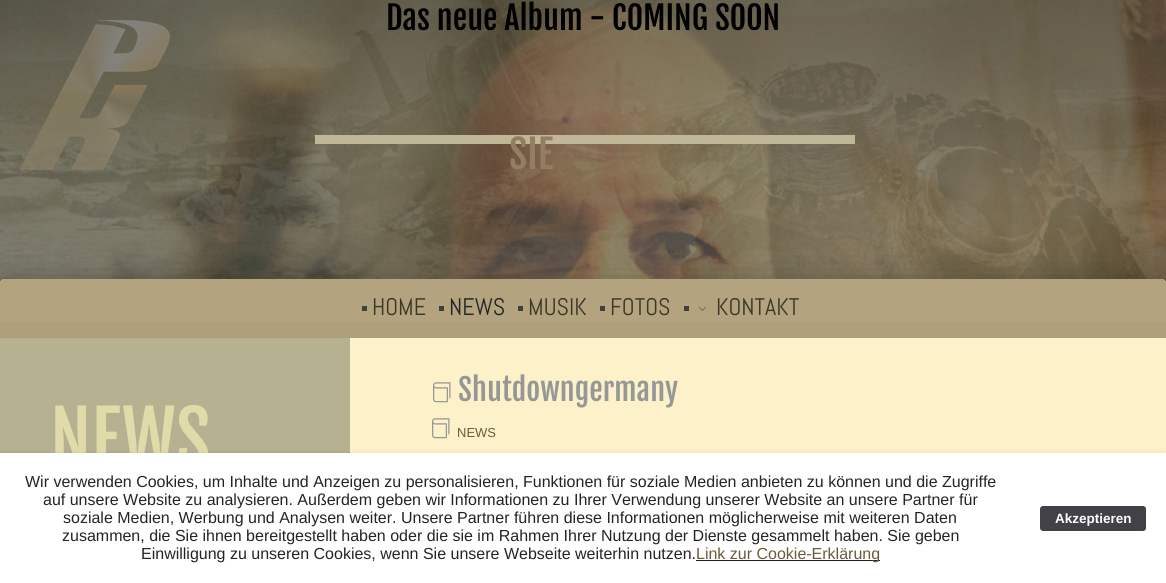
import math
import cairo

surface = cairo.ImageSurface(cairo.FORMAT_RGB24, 1166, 583)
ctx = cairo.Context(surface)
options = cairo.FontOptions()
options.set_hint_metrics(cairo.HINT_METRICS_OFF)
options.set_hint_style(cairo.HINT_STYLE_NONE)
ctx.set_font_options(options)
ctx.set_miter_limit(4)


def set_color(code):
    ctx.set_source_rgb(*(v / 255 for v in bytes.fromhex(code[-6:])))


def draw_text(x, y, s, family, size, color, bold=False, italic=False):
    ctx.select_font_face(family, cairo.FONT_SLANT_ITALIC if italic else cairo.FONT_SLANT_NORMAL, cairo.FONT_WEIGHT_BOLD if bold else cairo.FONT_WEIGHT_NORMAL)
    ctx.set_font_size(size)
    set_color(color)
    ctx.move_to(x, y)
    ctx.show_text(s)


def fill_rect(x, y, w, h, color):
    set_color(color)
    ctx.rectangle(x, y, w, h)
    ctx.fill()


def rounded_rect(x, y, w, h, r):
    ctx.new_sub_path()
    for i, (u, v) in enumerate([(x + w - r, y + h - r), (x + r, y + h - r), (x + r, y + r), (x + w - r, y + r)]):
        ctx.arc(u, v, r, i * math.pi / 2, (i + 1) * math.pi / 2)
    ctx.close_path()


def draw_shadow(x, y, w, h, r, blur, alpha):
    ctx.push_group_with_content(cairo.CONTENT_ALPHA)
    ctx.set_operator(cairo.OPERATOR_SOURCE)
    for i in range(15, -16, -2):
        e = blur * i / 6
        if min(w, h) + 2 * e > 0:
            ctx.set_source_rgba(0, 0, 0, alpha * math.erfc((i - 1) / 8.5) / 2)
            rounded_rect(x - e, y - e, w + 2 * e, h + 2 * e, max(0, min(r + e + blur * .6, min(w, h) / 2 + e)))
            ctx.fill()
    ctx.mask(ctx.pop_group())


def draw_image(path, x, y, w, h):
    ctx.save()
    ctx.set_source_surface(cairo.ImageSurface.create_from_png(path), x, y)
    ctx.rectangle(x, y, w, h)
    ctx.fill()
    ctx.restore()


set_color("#ffffff")
ctx.paint()
draw_image("assets/img1.png", 0, 0, 1166, 284)
draw_text(386, 30, "Das neue Album - COMING SOON", "Fjalla One", 32, "#000000")
draw_image("assets/img2.png", 20, 20, 150, 150)
fill_rect(315, 135, 540, 9, "#c0b698")
draw_text(509, 169, "SIE", "Fjalla One", 39, "#927e63")
set_color("#000000")
draw_shadow(0, 284, 1166, 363, 5, 19.5, 0.35)
set_color("#fcf1c9")
rounded_rect(0, 279, 1166, 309, 5)
ctx.fill()
set_color("#b5b191")
ctx.new_path()
ctx.move_to(5, 279)
ctx.line_to(350, 279)
ctx.line_to(350, 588)
ctx.line_to(5, 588)
ctx.curve_to(2, 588, 0, 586, 0, 583)
ctx.line_to(0, 284)
ctx.curve_to(0, 281, 2, 279, 5, 279)
ctx.close_path()
ctx.fill()
set_color("#b3a47f")
ctx.new_path()
ctx.move_to(5, 279)
ctx.line_to(1161, 279)
ctx.curve_to(1164, 279, 1166, 281, 1166, 284)
ctx.line_to(1166, 338)
ctx.line_to(0, 338)
ctx.line_to(0, 284)
ctx.curve_to(0, 281, 2, 279, 5, 279)
ctx.close_path()
ctx.fill()
gradient = cairo.LinearGradient(583, 338, 583, 279)
gradient.add_color_stop_rgba(0, 0, 0, 0, 0.03)
gradient.add_color_stop_rgba(1, 0, 0, 0, 0)
ctx.set_source(gradient)
ctx.rectangle(0, 321, 1166, 17)
ctx.fill()
fill_rect(362, 306, 5, 5, "#404040")
draw_text(372, 315, "HOME", "Abel", 24, "#3c3726")
fill_rect(439, 306, 5, 5, "#404040")
draw_text(449, 315, "NEWS", "Abel", 24, "#242424")
fill_rect(518, 306, 5, 5, "#404040")
draw_text(528, 315, "MUSIK", "Abel", 24, "#3c3726")
fill_rect(600, 306, 5, 5, "#404040")
draw_text(610, 315, "FOTOS", "Abel", 24, "#3c3726")
fill_rect(684, 306, 5, 5, "#404040")
draw_image("assets/img3.png", 698, 306, 9, 5)
draw_text(716, 315, "KONTAKT", "Abel", 24, "#3c3726")
draw_text(50, 468, "NEWS", "Fjalla One", 75, "#e1daa9")
draw_image("assets/img4.png", 433, 382, 18, 21)
draw_text(458, 401, "Shutdowngermany", "Fjalla One", 30, "#969898")
draw_image("assets/img4.png", 432, 418, 18, 21)
draw_text(457, 437, "NEWS", "Liberation Sans", 13, "#6b5a3a")
set_color("#000000")
draw_shadow(-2, 453, 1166, 130, 0, 2, 0.1)
fill_rect(0, 453, 1166, 130, "#ffffff")
draw_text(25, 487, "Wir verwenden Cookies, um Inhalte und Anzeigen zu personalisieren, Funktionen für soziale Medien anbieten zu können und die Zugriffe", "Liberation Sans", 16, "#242424")
draw_text(43, 505, "auf unsere Website zu analysieren. Außerdem geben wir Informationen zu Ihrer Verwendung unserer Website an unsere Partner für", "Liberation Sans", 16, "#242424")
draw_text(63, 523, "soziale Medien, Werbung und Analysen weiter. Unsere Partner führen diese Informationen möglicherweise mit weiteren Daten", "Liberation Sans", 16, "#242424")
draw_text(62, 541, "zusammen, die Sie ihnen bereitgestellt haben oder die sie im Rahmen Ihrer Nutzung der Dienste gesammelt haben. Sie geben", "Liberation Sans", 16, "#242424")
draw_text(141, 559, "Einwilligung zu unseren Cookies, wenn Sie unsere Webseite weiterhin nutzen.", "Liberation Sans", 16, "#242424")
fill_rect(696, 560, 184, 1, "#1f1f1f")
draw_text(696, 559, "Link zur Cookie-Erklärung", "Liberation Sans", 16, "#6b5a3a")
set_color("#424147")
rounded_rect(1040, 506, 106, 25, 3)
ctx.fill()
draw_text(1055, 523, "Akzeptieren", "Liberation Sans", 13.5, "#ffffff", bold=True)
surface.write_to_png("output.png")
